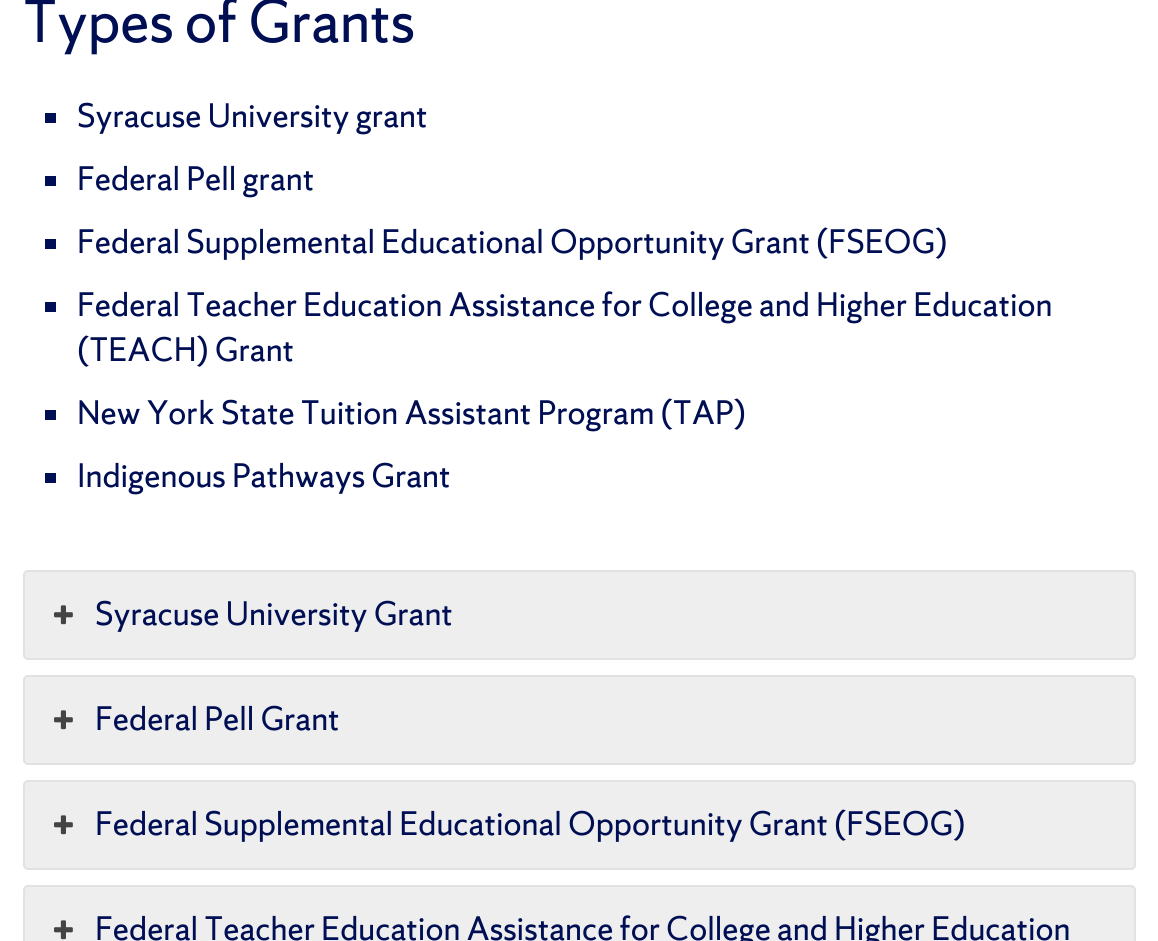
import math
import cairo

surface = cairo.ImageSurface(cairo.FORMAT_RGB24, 1158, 941)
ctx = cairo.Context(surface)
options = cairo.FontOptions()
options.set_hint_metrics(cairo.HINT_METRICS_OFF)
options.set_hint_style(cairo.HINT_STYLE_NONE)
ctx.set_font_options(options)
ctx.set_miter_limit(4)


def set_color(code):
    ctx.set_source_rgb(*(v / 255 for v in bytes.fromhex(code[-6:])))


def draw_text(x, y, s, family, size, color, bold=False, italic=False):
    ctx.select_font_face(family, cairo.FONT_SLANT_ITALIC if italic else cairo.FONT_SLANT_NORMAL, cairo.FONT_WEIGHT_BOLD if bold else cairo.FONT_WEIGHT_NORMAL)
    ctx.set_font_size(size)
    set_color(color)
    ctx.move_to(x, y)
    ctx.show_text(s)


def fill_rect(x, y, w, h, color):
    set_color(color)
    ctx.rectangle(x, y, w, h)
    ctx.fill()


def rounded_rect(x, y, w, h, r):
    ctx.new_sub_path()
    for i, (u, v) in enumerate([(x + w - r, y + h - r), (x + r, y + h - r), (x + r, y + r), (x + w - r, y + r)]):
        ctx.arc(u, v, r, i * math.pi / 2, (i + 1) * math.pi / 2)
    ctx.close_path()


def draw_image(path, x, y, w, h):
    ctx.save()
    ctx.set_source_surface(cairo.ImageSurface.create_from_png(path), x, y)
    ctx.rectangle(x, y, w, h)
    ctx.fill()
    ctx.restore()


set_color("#ffffff")
ctx.paint()
draw_text(23, 42, "Types of Grants", "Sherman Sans", 54, "#000e54")
fill_rect(45, 113, 11, 10, "#000e54")
draw_text(77, 127, "Syracuse University grant", "Sherman Sans", 30, "#000e54")
fill_rect(45, 176, 11, 10, "#000e54")
draw_text(77, 190, "Federal Pell grant", "Sherman Sans", 30, "#000e54")
fill_rect(45, 239, 11, 10, "#000e54")
draw_text(77, 253, "Federal Supplemental Educational Opportunity Grant (FSEOG)", "Sherman Sans", 30, "#000e54")
fill_rect(45, 302, 11, 10, "#000e54")
draw_text(77, 316, "Federal Teacher Education Assistance for College and Higher Education", "Sherman Sans", 30, "#000e54")
draw_text(77, 361, "(TEACH) Grant", "Sherman Sans", 30, "#000e54")
fill_rect(45, 410, 11, 10, "#000e54")
draw_text(77, 424, "New York State Tuition Assistant Program (TAP)", "Sherman Sans", 30, "#000e54")
fill_rect(45, 473, 11, 10, "#000e54")
draw_text(77, 487, "Indigenous Pathways Grant", "Sherman Sans", 30, "#000e54")
set_color("#eeeeee")
rounded_rect(24, 571, 1111, 88, 4)
ctx.fill_preserve()
set_color("#e2e2e2")
ctx.stroke()
draw_image("assets/img1.png", 54, 605, 19, 20)
draw_text(95, 625, "Syracuse University Grant", "Sherman Sans", 30, "#000e54")
set_color("#eeeeee")
rounded_rect(24, 676, 1111, 88, 4)
ctx.fill_preserve()
set_color("#e2e2e2")
ctx.stroke()
draw_image("assets/img1.png", 54, 710, 19, 20)
draw_text(95, 730, "Federal Pell Grant", "Sherman Sans", 30, "#000e54")
set_color("#eeeeee")
rounded_rect(24, 781, 1111, 88, 4)
ctx.fill_preserve()
set_color("#e2e2e2")
ctx.stroke()
draw_image("assets/img1.png", 54, 815, 19, 20)
draw_text(95, 835, "Federal Supplemental Educational Opportunity Grant (FSEOG)", "Sherman Sans", 30, "#000e54")
set_color("#eeeeee")
rounded_rect(24, 886, 1111, 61, 4)
ctx.fill_preserve()
set_color("#e2e2e2")
ctx.stroke()
draw_image("assets/img1.png", 54, 920, 19, 20)
draw_text(95, 940, "Federal Teacher Education Assistance for College and Higher Education", "Sherman Sans", 30, "#000e54")
surface.write_to_png("output.png")
